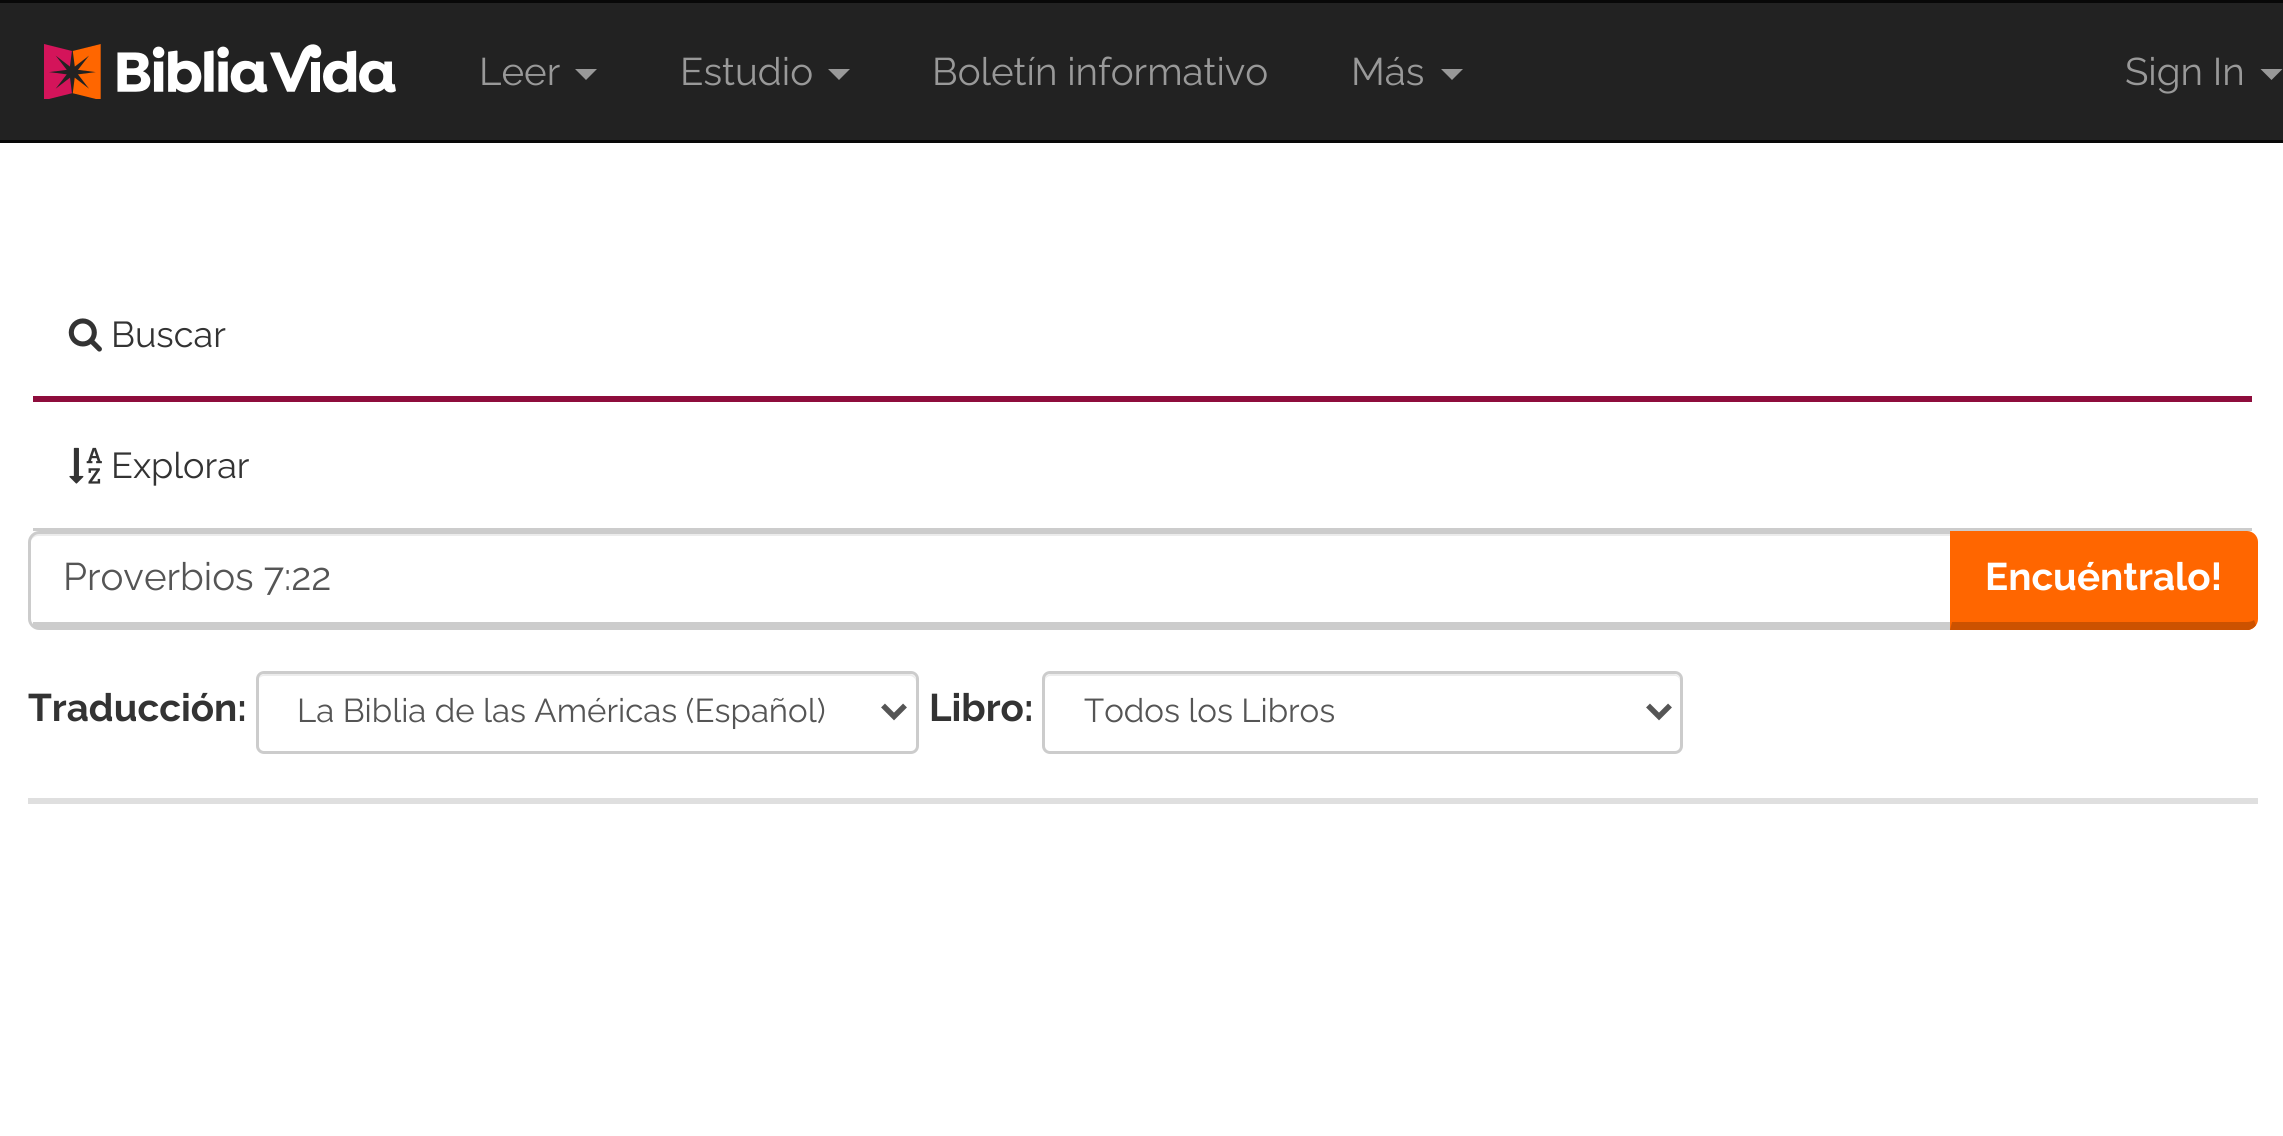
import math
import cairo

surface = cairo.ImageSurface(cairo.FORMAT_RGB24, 2283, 1136)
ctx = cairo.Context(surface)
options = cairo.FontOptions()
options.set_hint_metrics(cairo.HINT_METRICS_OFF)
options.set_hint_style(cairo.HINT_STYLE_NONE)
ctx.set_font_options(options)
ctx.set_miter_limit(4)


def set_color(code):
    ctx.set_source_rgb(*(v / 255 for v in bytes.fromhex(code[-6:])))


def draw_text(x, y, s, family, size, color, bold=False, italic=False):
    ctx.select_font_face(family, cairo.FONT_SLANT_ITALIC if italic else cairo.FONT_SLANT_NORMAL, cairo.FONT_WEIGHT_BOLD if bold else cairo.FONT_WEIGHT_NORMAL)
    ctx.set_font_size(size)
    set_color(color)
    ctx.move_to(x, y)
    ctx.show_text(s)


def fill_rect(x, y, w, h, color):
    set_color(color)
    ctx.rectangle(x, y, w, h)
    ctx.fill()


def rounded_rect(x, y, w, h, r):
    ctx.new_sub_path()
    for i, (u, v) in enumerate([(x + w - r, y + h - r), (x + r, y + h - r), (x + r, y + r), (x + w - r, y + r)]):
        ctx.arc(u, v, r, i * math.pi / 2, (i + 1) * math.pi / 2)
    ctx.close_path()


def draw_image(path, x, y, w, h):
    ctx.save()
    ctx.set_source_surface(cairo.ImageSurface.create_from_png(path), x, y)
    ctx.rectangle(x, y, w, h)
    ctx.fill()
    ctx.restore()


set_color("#ffffff")
ctx.paint()
set_color("#222222")
ctx.rectangle(-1.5, 1.5, 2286, 140)
ctx.fill_preserve()
set_color("#080808")
ctx.set_line_width(3)
ctx.stroke()
draw_image("assets/img1.png", 44, 44, 352, 55)
draw_text(479, 85, "Leer", "Raleway", 38.5, "#999999")
ctx.new_path()
ctx.move_to(575, 69)
ctx.line_to(597, 69)
ctx.line_to(586, 80)
ctx.close_path()
ctx.fill()
draw_text(680, 85, "Estudio", "Raleway", 38.5, "#999999")
ctx.new_path()
ctx.move_to(828, 69)
ctx.line_to(850, 69)
ctx.line_to(839, 80)
ctx.close_path()
ctx.fill()
draw_text(932, 85, "Boletín informativo", "Raleway", 38.5, "#999999")
draw_text(1351, 85, "Más", "Raleway", 38.5, "#999999")
ctx.new_path()
ctx.move_to(1441, 69)
ctx.line_to(1463, 69)
ctx.line_to(1452, 80)
ctx.close_path()
ctx.fill()
draw_text(2125, 85, "Sign In", "Raleway", 38.5, "#999999")
ctx.new_path()
ctx.move_to(2260.5, 69)
ctx.line_to(2282.5, 69)
ctx.line_to(2271.5, 80)
ctx.close_path()
ctx.fill()
fill_rect(28, 798, 2230, 6, "#dfdfdf")
fill_rect(33, 396, 2219, 6, "#8e0d3c")
draw_image("assets/img2.png", 68, 318, 34, 34)
draw_text(111, 347, "Buscar", "Raleway", 36, "#333333")
fill_rect(33, 528, 2219, 3, "#cccccc")
draw_image("assets/img3.png", 69, 447, 33, 37)
draw_text(111, 478, "Explorar", "Raleway", 36, "#333333")
set_color("#ececec")
ctx.new_path()
ctx.move_to(38, 536)
ctx.line_to(1950, 536)
ctx.line_to(1950, 534)
ctx.line_to(38, 534)
ctx.curve_to(34, 534, 30, 538, 30, 542)
ctx.curve_to(31, 539, 35, 536, 38, 536)
ctx.close_path()
ctx.fill()
ctx.new_path()
ctx.move_to(39, 532.5)
ctx.line_to(1951.5, 532.5)
ctx.line_to(1951.5, 628.5)
ctx.line_to(39, 628.5)
ctx.curve_to(34, 628.5, 29.5, 624, 29.5, 619)
ctx.line_to(29.5, 542)
ctx.curve_to(29.5, 537, 34, 532.5, 39, 532.5)
ctx.close_path()
set_color("#cccccc")
ctx.stroke()
fill_rect(33, 622, 1920, 5, "#cccccc")
draw_text(63, 590, "Proverbios 7:22", "Raleway", 38.5, "#555555")
set_color("#ff6600")
ctx.new_path()
ctx.move_to(1950, 531)
ctx.line_to(2247, 531)
ctx.curve_to(2253, 531, 2258, 536, 2258, 542)
ctx.line_to(2258, 619)
ctx.curve_to(2258, 625, 2253, 630, 2247, 630)
ctx.line_to(1950, 630)
ctx.close_path()
ctx.fill()
set_color("#cc5200")
ctx.new_path()
ctx.move_to(1950, 630)
ctx.line_to(1952, 622)
ctx.line_to(2247, 622)
ctx.curve_to(2250, 622, 2253, 621, 2254, 620)
ctx.line_to(2256, 625)
ctx.curve_to(2255, 627, 2252, 629, 2249, 630)
ctx.close_path()
ctx.fill()
draw_text(1985, 590, "Encuéntralo!", "Raleway", 38.5, "#ffffff", bold=True)
draw_text(28, 721, "Traducción:", "Raleway", 38.5, "#333333", bold=True)
set_color("#ececec")
ctx.new_path()
ctx.move_to(264, 676)
ctx.line_to(910, 676)
ctx.curve_to(913, 676, 916, 679, 916, 682)
ctx.line_to(916, 680)
ctx.curve_to(916, 677, 913, 674, 910, 674)
ctx.line_to(265, 674)
ctx.curve_to(262, 674, 260, 676, 259, 679)
ctx.curve_to(260, 677, 262, 676, 264, 676)
ctx.close_path()
ctx.fill()
rounded_rect(257.5, 672.5, 660, 80, 6.5)
set_color("#cccccc")
ctx.stroke()
ctx.new_path()
ctx.move_to(883, 705.5)
ctx.line_to(894, 716.5)
ctx.line_to(905, 705.5)
set_color("#555555")
ctx.set_line_width(5.5)
ctx.stroke()
draw_text(297, 722, "La Biblia de las Américas (Español)", "Raleway", 33, "#555555")
draw_text(929, 721, "Libro:", "Raleway", 38.5, "#333333", bold=True)
set_color("#ececec")
ctx.new_path()
ctx.move_to(1050, 676)
ctx.line_to(1675, 676)
ctx.curve_to(1678, 676, 1680, 679, 1680, 682)
ctx.line_to(1680, 680)
ctx.curve_to(1680, 677, 1677, 674, 1674, 674)
ctx.line_to(1051, 674)
ctx.curve_to(1048, 674, 1045, 677, 1045, 680)
ctx.line_to(1045, 682)
ctx.curve_to(1045, 679, 1047, 676, 1050, 676)
ctx.close_path()
ctx.fill()
rounded_rect(1043.5, 672.5, 638, 80, 6.5)
set_color("#cccccc")
ctx.set_line_width(3)
ctx.stroke()
ctx.new_path()
ctx.move_to(1648, 705.5)
ctx.line_to(1659, 716.5)
ctx.line_to(1670, 705.5)
set_color("#555555")
ctx.set_line_width(5.5)
ctx.stroke()
draw_text(1084, 722, "Todos los Libros", "Raleway", 33, "#555555")
surface.write_to_png("output.png")
